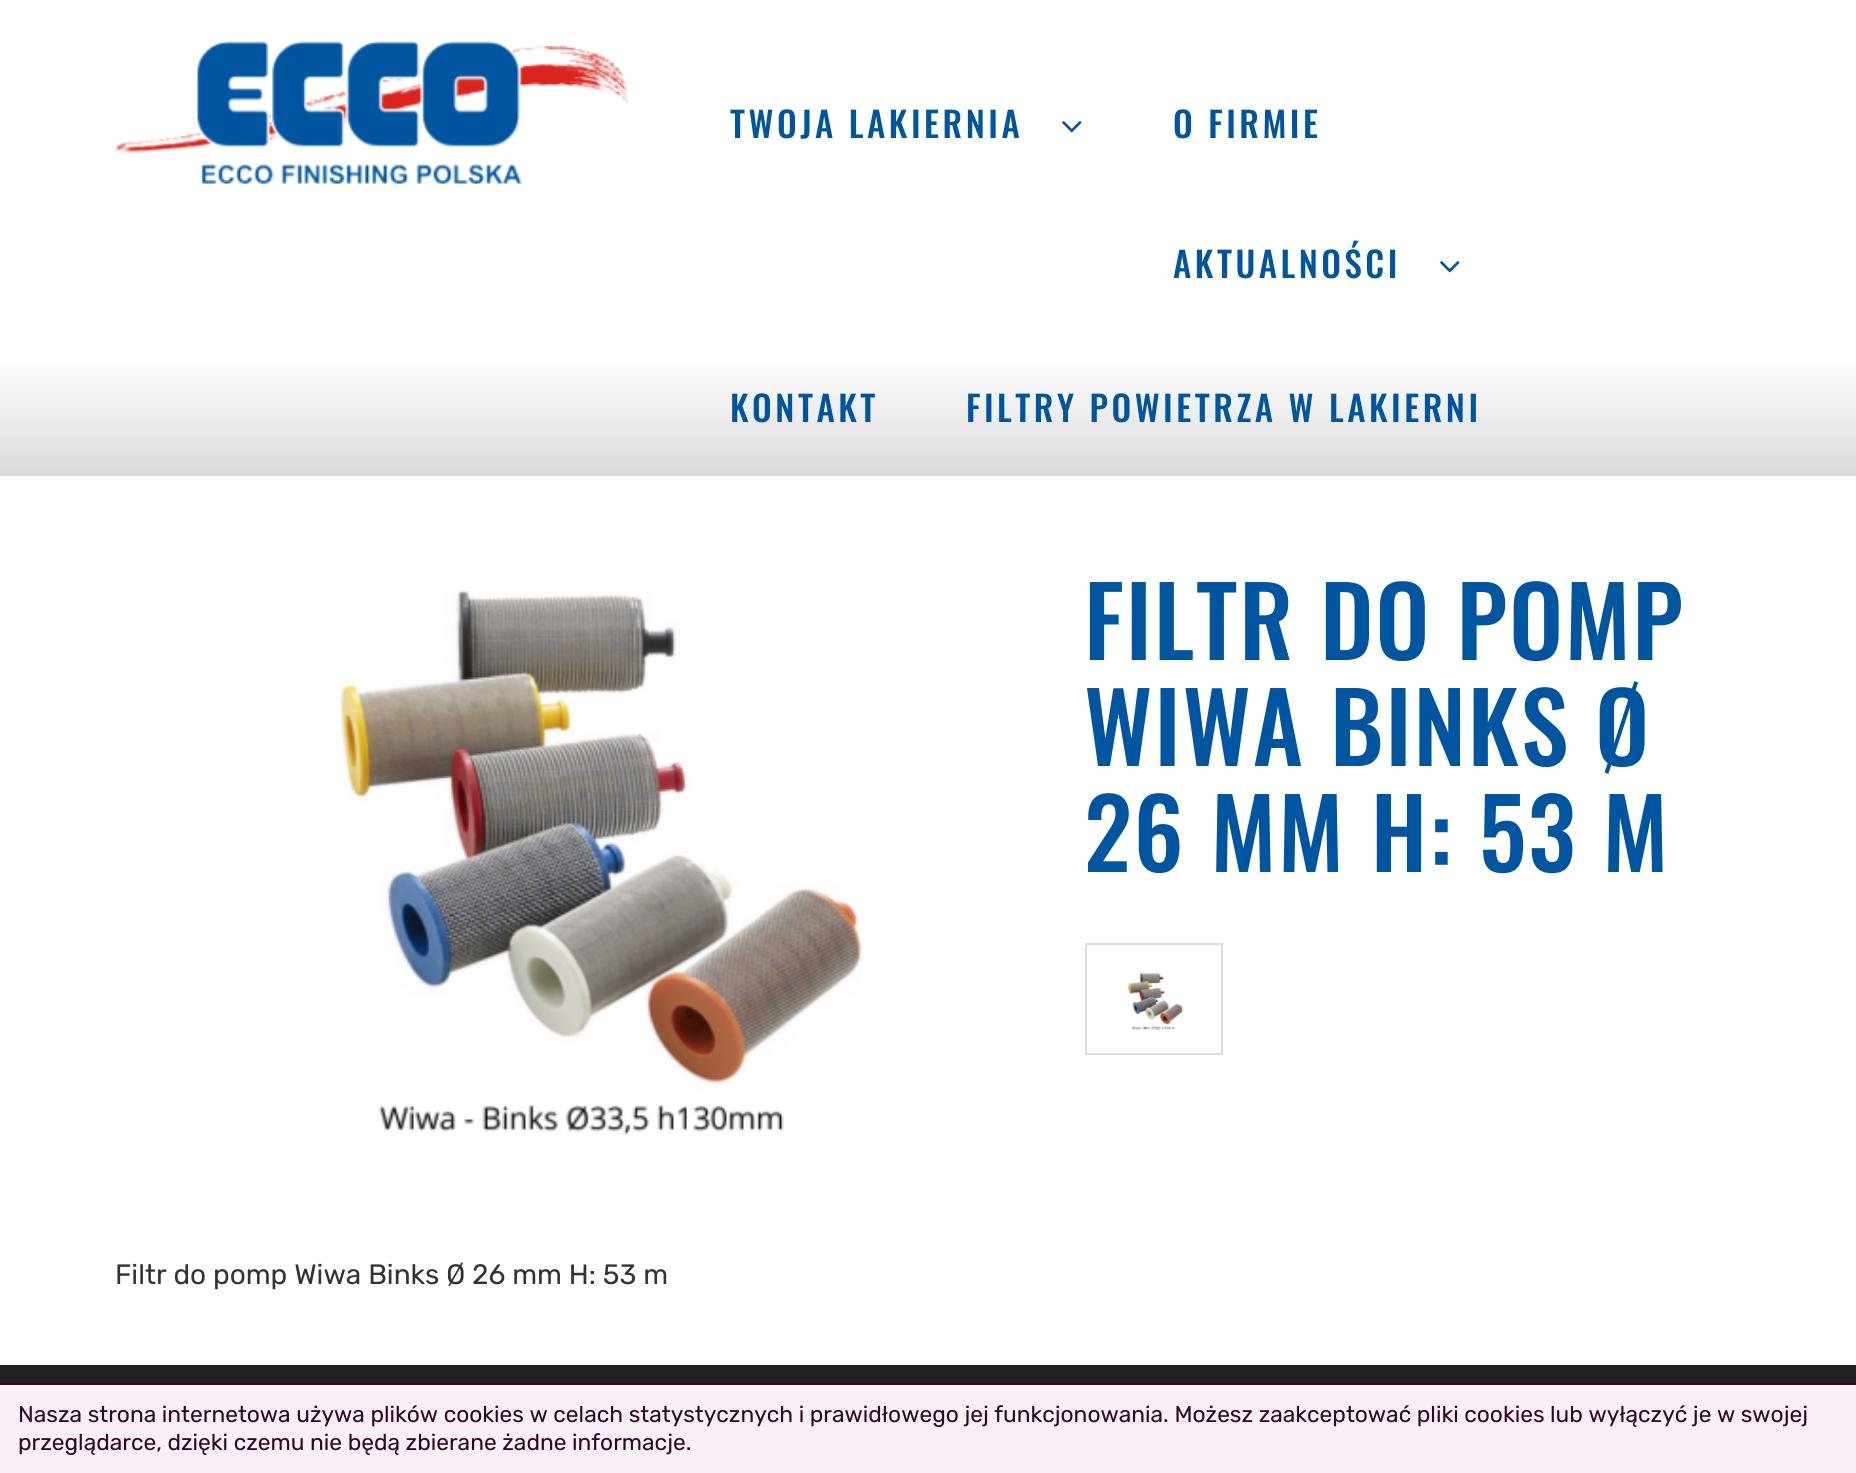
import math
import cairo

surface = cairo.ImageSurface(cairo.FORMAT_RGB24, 1856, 1473)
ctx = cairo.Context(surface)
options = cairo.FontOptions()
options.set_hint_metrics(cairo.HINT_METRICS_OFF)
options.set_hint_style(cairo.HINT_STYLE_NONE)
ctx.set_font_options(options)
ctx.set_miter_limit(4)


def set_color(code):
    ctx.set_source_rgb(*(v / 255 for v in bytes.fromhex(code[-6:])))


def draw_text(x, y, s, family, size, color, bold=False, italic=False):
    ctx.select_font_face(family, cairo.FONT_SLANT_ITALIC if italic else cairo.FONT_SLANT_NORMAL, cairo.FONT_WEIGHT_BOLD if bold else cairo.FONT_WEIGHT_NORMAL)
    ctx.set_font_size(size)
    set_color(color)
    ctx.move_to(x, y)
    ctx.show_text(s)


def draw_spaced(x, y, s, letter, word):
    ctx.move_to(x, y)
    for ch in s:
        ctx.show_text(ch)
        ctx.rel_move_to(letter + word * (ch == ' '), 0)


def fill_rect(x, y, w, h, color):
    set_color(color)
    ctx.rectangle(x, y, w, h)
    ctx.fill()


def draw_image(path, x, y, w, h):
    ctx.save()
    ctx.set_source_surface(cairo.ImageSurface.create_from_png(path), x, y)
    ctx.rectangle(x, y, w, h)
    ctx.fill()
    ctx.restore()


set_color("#ffffff")
ctx.paint()
gradient = cairo.LinearGradient(928, 0, 928, 476)
gradient.add_color_stop_rgba(0, 1, 1, 1, 1)
gradient.add_color_stop_rgba(0.75, 1, 1, 1, 1)
gradient.add_color_stop_rgba(1, 0.855, 0.855, 0.855, 1)
ctx.set_source(gradient)
ctx.rectangle(0, 365, 1856, 111)
ctx.fill()
draw_image("assets/img1.png", 115, 41, 515, 143)
ctx.select_font_face("Oswald Medium")
ctx.set_font_size(35)
set_color("#0055a0")
draw_spaced(730, 138, "TWOJA LAKIERNIA", 3.5, 0)
draw_image("assets/img2.png", 1062, 121, 20, 12)
draw_spaced(1173, 138, "O FIRMIE", 3.5, 0)
draw_spaced(1173, 278, "AKTUALNOŚCI", 3.5, 0)
draw_image("assets/img2.png", 1440, 261, 20, 12)
draw_spaced(730, 422, "KONTAKT", 3.5, 0)
draw_spaced(966, 422, "FILTRY POWIETRZA W LAKIERNI", 3.5, 0)
draw_image("assets/img3.png", 339, 590, 523, 546)
ctx.set_font_size(96.25)
draw_spaced(1084, 660, "FILTR DO POMP", 1.75, 0)
draw_spaced(1084, 766, "WIWA BINKS Ø", 1.75, 0)
draw_spaced(1084, 872, "26 MM H: 53 M", 1.75, 0)
ctx.rectangle(1086, 944, 136, 110)
set_color("#dddddd")
ctx.stroke()
draw_image("assets/img4.png", 1127, 972, 57, 58)
draw_text(115, 1284, "Filtr do pomp Wiwa Binks Ø 26 mm H: 53 m", "Rubik Light", 28, "#333333")
fill_rect(0, 1365, 1856, 18, "#222222")
fill_rect(0, 1385, 1856, 88, "#f9f0f7")
fill_rect(0, 1383, 1856, 2, "#2f0725")
draw_text(18, 1422, "Nasza strona internetowa używa plików cookies w celach statystycznych i prawidłowego jej funkcjonowania. Możesz zaakceptować pliki cookies lub wyłączyć je w swojej", "Rubik Light", 22.75, "#2f0725")
draw_text(18, 1450, "przeglądarce, dzięki czemu nie będą zbierane żadne informacje.", "Rubik Light", 22.75, "#2f0725")
surface.write_to_png("output.png")
